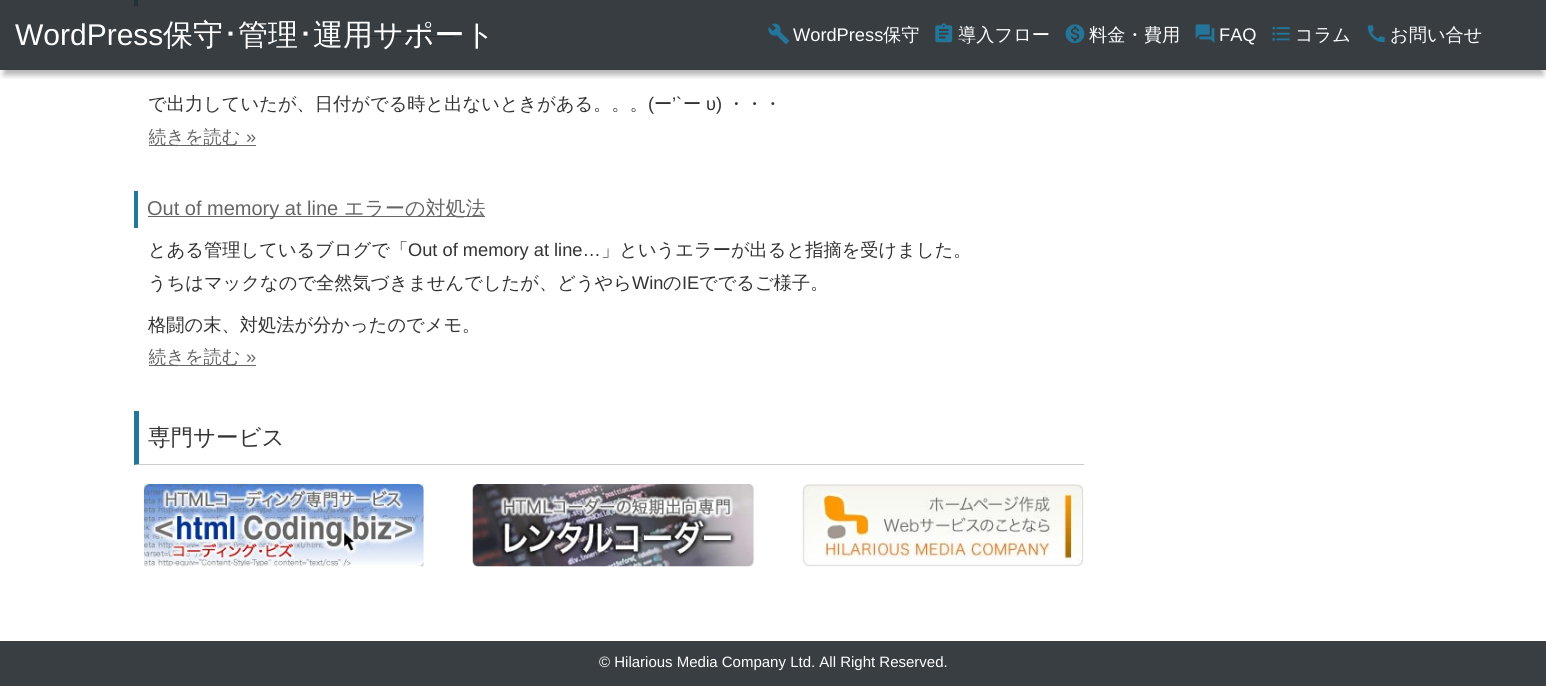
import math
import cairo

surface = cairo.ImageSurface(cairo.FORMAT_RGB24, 1546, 686)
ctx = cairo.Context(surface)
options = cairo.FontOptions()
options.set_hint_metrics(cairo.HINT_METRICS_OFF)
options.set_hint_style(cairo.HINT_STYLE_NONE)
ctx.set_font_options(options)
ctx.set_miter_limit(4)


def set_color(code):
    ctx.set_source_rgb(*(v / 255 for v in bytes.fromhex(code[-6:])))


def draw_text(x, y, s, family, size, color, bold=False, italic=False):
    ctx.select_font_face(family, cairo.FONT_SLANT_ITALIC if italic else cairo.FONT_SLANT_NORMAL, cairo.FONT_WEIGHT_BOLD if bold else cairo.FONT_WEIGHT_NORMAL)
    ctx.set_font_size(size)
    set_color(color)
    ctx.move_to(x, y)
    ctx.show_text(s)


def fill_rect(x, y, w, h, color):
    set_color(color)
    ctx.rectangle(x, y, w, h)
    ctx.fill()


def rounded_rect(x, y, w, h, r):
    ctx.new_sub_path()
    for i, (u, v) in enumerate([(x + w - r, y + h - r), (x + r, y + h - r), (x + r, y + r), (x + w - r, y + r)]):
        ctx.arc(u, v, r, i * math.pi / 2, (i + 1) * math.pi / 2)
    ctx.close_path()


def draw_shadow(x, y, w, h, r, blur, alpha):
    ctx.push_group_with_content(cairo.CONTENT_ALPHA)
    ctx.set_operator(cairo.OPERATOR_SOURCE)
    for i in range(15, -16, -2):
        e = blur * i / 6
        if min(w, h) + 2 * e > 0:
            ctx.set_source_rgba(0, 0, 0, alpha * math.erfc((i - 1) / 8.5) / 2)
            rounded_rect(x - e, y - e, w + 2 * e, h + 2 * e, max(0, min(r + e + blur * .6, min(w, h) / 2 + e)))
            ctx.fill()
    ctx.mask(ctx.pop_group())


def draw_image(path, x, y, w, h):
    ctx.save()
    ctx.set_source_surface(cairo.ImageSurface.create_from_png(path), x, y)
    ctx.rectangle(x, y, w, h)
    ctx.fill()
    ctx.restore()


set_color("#ffffff")
ctx.paint()
fill_rect(134, 0, 4, 6, "#23769a")
fill_rect(368, 36, 86, 1, "#666666")
ctx.save()
ctx.rectangle(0, 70, 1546, 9)
ctx.clip()
set_color("#000000")
draw_shadow(4, 13, 1539, 62, 0, 3, 0.3)
ctx.restore()
ctx.set_source_rgba(0.137, 0.157, 0.176, 0.9)
ctx.rectangle(0, 0, 1546, 70)
ctx.fill()
draw_text(15, 45, "WordPress", "Liberation Sans", 30, "#ffffff")
draw_text(163, 45, "保守", "WenQuanYi Zen Hei Medium", 30, "#ffffff")
draw_text(223, 45, "･", "IPAPGothic", 30, "#ffffff")
draw_text(238, 45, "管理", "WenQuanYi Zen Hei Medium", 30, "#ffffff")
draw_text(298, 45, "･", "IPAPGothic", 30, "#ffffff")
draw_text(313, 45, "運用サポート", "WenQuanYi Zen Hei Medium", 30, "#ffffff")
draw_image("assets/img1.png", 768, 23, 21, 21)
draw_text(793, 41, "WordPress", "Liberation Sans", 18.25, "#ffffff")
draw_text(883, 41, "保守", "WenQuanYi Zen Hei Medium", 18.25, "#ffffff")
draw_image("assets/img2.png", 935, 23, 18, 20)
draw_text(958, 41, "導入フロー", "WenQuanYi Zen Hei Medium", 18.25, "#ffffff")
draw_image("assets/img3.png", 1065, 24, 20, 20)
draw_text(1089, 41, "料金・費用", "WenQuanYi Zen Hei Medium", 18.25, "#ffffff")
draw_image("assets/img4.png", 1195, 24, 20, 19)
draw_text(1219, 41, "FAQ", "Liberation Sans", 18.25, "#ffffff")
draw_image("assets/img5.png", 1272, 26, 18, 15)
draw_text(1295, 41, "コラム", "WenQuanYi Zen Hei Medium", 18.25, "#ffffff")
draw_image("assets/img6.png", 1367, 25, 18, 18)
draw_text(1390, 41, "お問い合せ", "WenQuanYi Zen Hei Medium", 18.25, "#ffffff")
draw_text(148, 110, "で出力していたが、日付がでる時と出ないときがある。。。", "WenQuanYi Zen Hei Medium", 18.25, "#333333")
draw_text(648, 110, "(", "Liberation Sans", 18.25, "#333333")
draw_text(654, 110, "ー", "WenQuanYi Zen Hei Medium", 18.25, "#333333")
draw_text(672, 110, "’`", "Liberation Sans", 18.25, "#333333")
draw_text(683, 110, "ー", "WenQuanYi Zen Hei Medium", 18.25, "#333333")
draw_text(706, 110, "υ)", "Liberation Sans", 18.25, "#333333")
draw_text(727, 110, "・・・", "WenQuanYi Zen Hei Medium", 18.25, "#333333")
fill_rect(149, 145, 107, 1, "#666666")
ctx.save()
ctx.rectangle(149, 121, 107, 33)
ctx.clip()
draw_text(148, 143, "続きを読む", "WenQuanYi Zen Hei Medium", 18.25, "#666666")
ctx.restore()
draw_text(246, 143, "»", "Liberation Sans", 18.25, "#666666")
fill_rect(134, 191, 4, 37, "#23769a")
fill_rect(148, 216, 337, 1, "#666666")
draw_text(147, 215, "Out of memory at line", "Liberation Sans", 20, "#666666")
draw_text(344, 215, "エラーの対処法", "WenQuanYi Zen Hei Medium", 20, "#666666")
draw_text(148, 256, "とある管理しているブログで「", "WenQuanYi Zen Hei Medium", 18.25, "#333333")
draw_text(408, 256, "Out of memory at line…", "Liberation Sans", 18.25, "#333333")
draw_text(601, 256, "」というエラーが出ると指摘を受けました。", "WenQuanYi Zen Hei Medium", 18.25, "#333333")
draw_text(148, 289, "うちはマックなので全然気づきませんでしたが、どうやら", "WenQuanYi Zen Hei Medium", 18.25, "#333333")
draw_text(632, 289, "Win", "Liberation Sans", 18.25, "#333333")
draw_text(663, 289, "の", "WenQuanYi Zen Hei Medium", 18.25, "#333333")
draw_text(682, 289, "IE", "Liberation Sans", 18.25, "#333333")
draw_text(699, 289, "ででるご様子。", "WenQuanYi Zen Hei Medium", 18.25, "#333333")
draw_text(148, 331, "格闘の末、対処法が分かったのでメモ。", "WenQuanYi Zen Hei Medium", 18.25, "#333333")
fill_rect(149, 365, 107, 1, "#666666")
ctx.save()
ctx.rectangle(149, 341, 107, 33)
ctx.clip()
draw_text(148, 363, "続きを読む", "WenQuanYi Zen Hei Medium", 18.25, "#666666")
ctx.restore()
draw_text(246, 363, "»", "Liberation Sans", 18.25, "#666666")
set_color("#cccccc")
ctx.new_path()
ctx.move_to(1084, 465)
ctx.line_to(134, 465)
ctx.line_to(139, 464)
ctx.line_to(1084, 464)
ctx.close_path()
ctx.fill()
set_color("#23769a")
ctx.new_path()
ctx.move_to(134, 465)
ctx.line_to(134, 411)
ctx.line_to(139, 411)
ctx.line_to(139, 464)
ctx.close_path()
ctx.fill()
draw_text(148, 445, "専門サービス", "WenQuanYi Zen Hei Medium", 22.5, "#333333")
draw_image("assets/img7.png", 143, 484, 281, 83)
draw_image("assets/img8.png", 472, 484, 282, 83)
draw_image("assets/img9.png", 802, 484, 282, 83)
fill_rect(0, 641, 1546, 45, "#393e42")
draw_text(599, 667, "© Hilarious Media Company Ltd. All Right Reserved.", "Liberation Sans", 15, "#ffffff")
surface.write_to_png("output.png")
